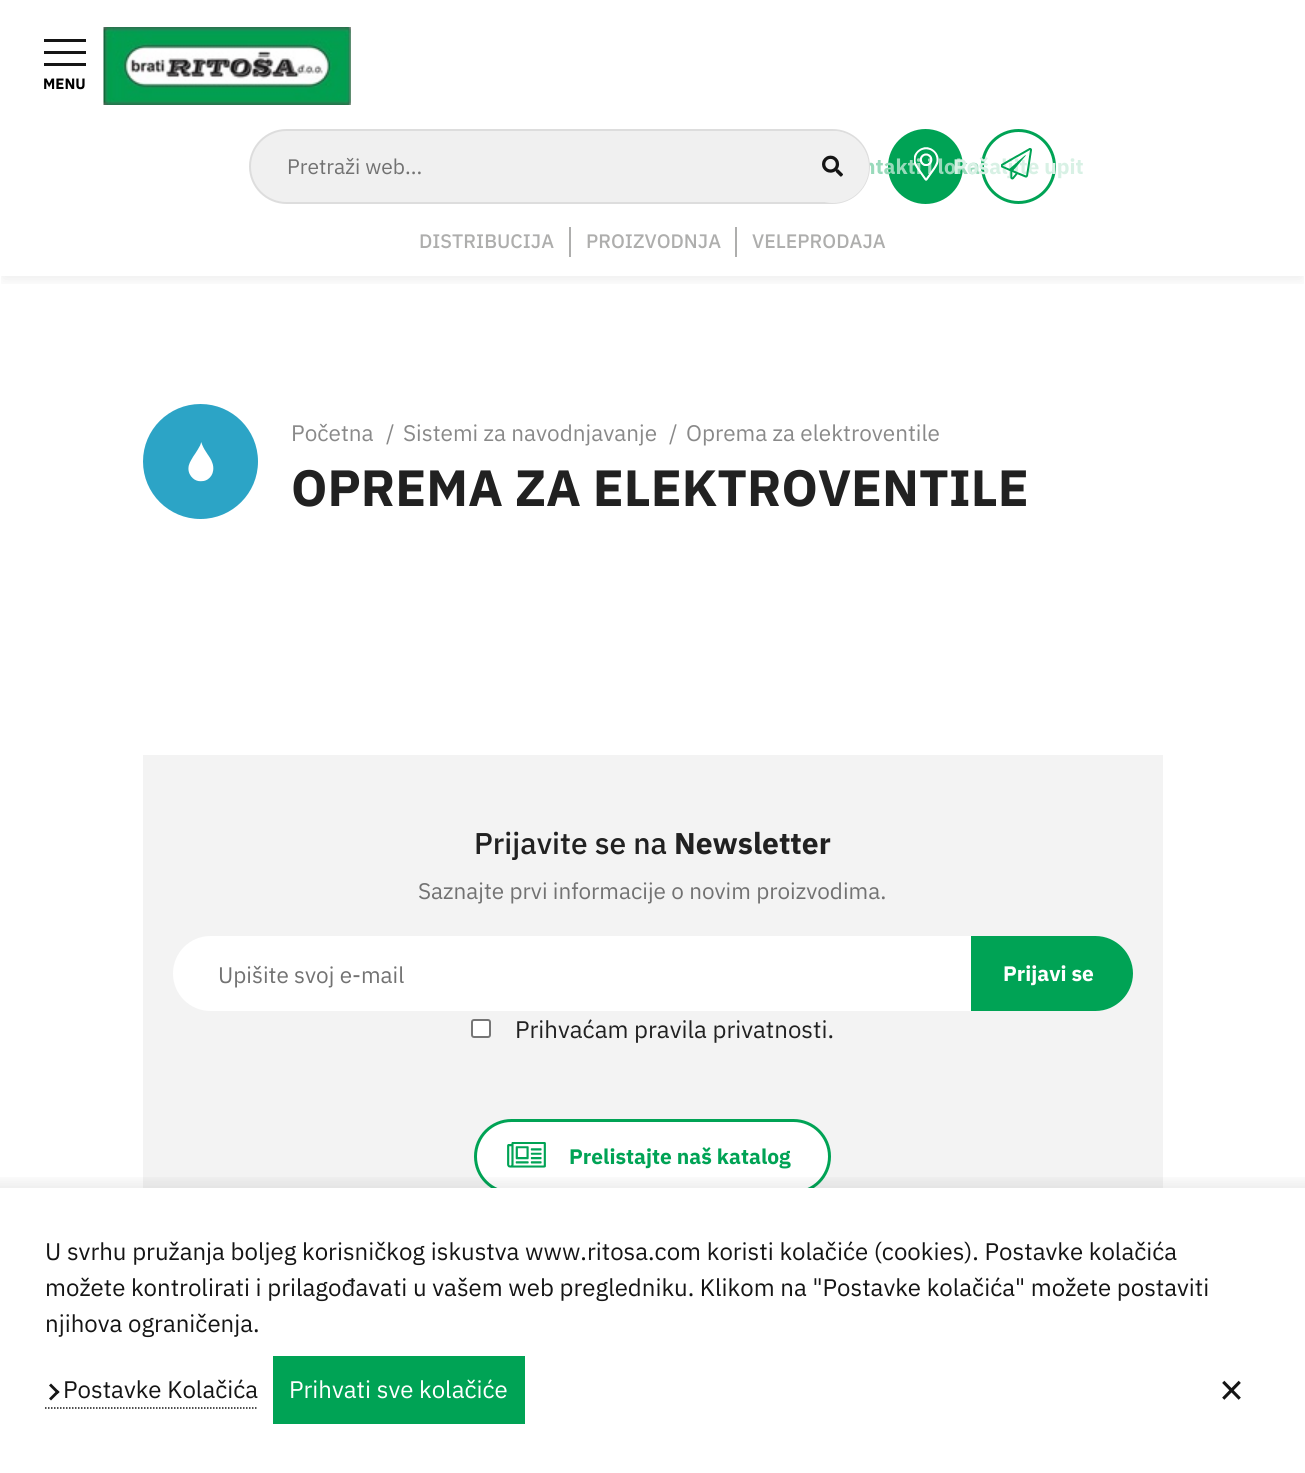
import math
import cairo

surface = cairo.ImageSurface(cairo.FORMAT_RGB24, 1305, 1473)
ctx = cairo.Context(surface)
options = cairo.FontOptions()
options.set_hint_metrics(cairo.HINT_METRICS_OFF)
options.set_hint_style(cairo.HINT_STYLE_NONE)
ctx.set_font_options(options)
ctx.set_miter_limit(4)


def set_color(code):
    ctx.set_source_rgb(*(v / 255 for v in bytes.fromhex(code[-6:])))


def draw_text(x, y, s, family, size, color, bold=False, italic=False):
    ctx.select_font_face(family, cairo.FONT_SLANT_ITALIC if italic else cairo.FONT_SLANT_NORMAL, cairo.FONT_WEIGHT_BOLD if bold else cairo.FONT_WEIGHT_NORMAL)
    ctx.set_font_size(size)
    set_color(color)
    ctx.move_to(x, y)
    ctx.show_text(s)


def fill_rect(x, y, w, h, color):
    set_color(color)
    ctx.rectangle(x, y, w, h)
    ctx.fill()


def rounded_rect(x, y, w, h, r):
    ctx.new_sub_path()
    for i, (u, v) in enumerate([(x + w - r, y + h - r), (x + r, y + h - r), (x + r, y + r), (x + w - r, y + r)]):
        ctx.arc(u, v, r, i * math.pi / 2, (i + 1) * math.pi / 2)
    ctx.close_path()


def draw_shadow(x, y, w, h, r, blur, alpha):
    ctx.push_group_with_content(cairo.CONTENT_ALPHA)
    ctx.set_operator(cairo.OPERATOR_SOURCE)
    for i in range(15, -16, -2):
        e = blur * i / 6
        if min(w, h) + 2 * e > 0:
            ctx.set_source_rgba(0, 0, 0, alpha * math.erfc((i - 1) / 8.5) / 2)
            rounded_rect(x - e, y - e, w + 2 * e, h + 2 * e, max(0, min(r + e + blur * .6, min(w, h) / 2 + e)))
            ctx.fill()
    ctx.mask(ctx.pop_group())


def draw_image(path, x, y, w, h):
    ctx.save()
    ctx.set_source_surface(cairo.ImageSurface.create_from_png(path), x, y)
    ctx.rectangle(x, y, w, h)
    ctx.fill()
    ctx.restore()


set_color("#ffffff")
ctx.paint()
fill_rect(44, 39, 42, 3, "#151515")
fill_rect(44, 51, 42, 3, "#151515")
fill_rect(44, 63, 42, 3, "#151515")
draw_text(43, 89, "MENU", "IBM Plex Sans", 15, "#000000", bold=True)
draw_image("assets/img1.png", 103, 27, 248, 78)
ctx.save()
ctx.rectangle(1, 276, 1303, 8)
ctx.clip()
set_color("#000000")
draw_shadow(3, 114, 1299, 165, 0, 7.5, 0.08)
ctx.restore()
set_color("#00a355")
ctx.arc(925.5, 166.5, 36, 0, 2 * math.pi)
ctx.fill_preserve()
ctx.set_line_width(3)
ctx.stroke()
draw_text(863, 174, "ntakti i loka", "IBM Plex Sans", 21, "#99dabb", bold=True)
set_color("#f0f0f0")
rounded_rect(250, 130, 619, 73, 36.5)
ctx.fill_preserve()
set_color("#dddddd")
ctx.set_line_width(2)
ctx.stroke()
draw_text(287, 174, "Pretraži web...", "IBM Plex Sans", 21, "#727272")
set_color("#f0f0f0")
ctx.new_path()
ctx.arc(833, 167, 36, 0, 2 * math.pi)
ctx.fill()
draw_image("assets/img2.png", 822, 155, 21, 22)
draw_image("assets/img3.png", 914, 147, 25, 34)
ctx.arc(1018.5, 166.5, 36, 0, 2 * math.pi)
set_color("#00a355")
ctx.set_line_width(3)
ctx.stroke()
draw_text(953, 174, "Pošaljite upit", "IBM Plex Sans", 21, "#d8f1e5", bold=True)
draw_image("assets/img4.png", 1001, 148, 31, 32)
fill_rect(569, 227, 2, 30, "#aeaead")
draw_text(419, 248, "DISTRIBUCIJA", "IBM Plex Sans Medium", 19.5, "#aeaead")
fill_rect(735, 227, 2, 30, "#aeaead")
draw_text(586, 248, "PROIZVODNJA", "IBM Plex Sans Medium", 19.5, "#aeaead")
draw_text(752, 248, "VELEPRODAJA", "IBM Plex Sans Medium", 19.5, "#aeaead")
set_color("#2ca4c6")
ctx.new_path()
ctx.arc(200.5, 461.5, 57.5, 0, 2 * math.pi)
ctx.fill()
draw_image("assets/img5.png", 188, 442, 26, 40)
draw_text(291, 441, "Početna", "IBM Plex Sans", 22.5, "#898989")
draw_text(386, 441, "/", "IBM Plex Sans", 22.5, "#898989")
draw_text(403, 441, "Sistemi za navodnjavanje", "IBM Plex Sans", 22.5, "#898989")
draw_text(669, 441, "/", "IBM Plex Sans", 22.5, "#898989")
draw_text(686, 441, "Oprema za elektroventile", "IBM Plex Sans", 22.5, "#898989")
draw_text(291, 506, "OPREMA ZA ELEKTROVENTILE", "IBM Plex Sans", 51, "#212121", bold=True)
fill_rect(143, 755, 1020, 433, "#f3f3f3")
draw_text(474, 854, "Prijavite se na", "IBM Plex Sans Medium", 30, "#212121")
draw_text(674, 854, "Newsletter", "IBM Plex Sans", 30, "#212121", bold=True)
draw_text(418, 899, "Saznajte prvi informacije o novim proizvodima.", "IBM Plex Sans", 22.5, "#727272")
set_color("#ffffff")
rounded_rect(173, 936, 960, 75, 37.5)
ctx.fill()
draw_text(218, 983, "Upišite svoj e-mail", "IBM Plex Sans", 22.5, "#727272")
set_color("#00a355")
ctx.new_path()
ctx.move_to(971, 936)
ctx.line_to(1095.5, 936)
ctx.curve_to(1116, 936, 1133, 953, 1133, 973.5)
ctx.curve_to(1133, 994, 1116, 1011, 1095.5, 1011)
ctx.line_to(971, 1011)
ctx.close_path()
ctx.fill()
draw_text(1003, 981, "Prijavi se", "IBM Plex Sans", 21, "#ffffff", bold=True)
rounded_rect(472, 1020, 18, 17, 2)
ctx.fill_preserve()
set_color("#767676")
ctx.set_line_width(2)
ctx.stroke()
draw_text(515, 1038, "Prihvaćam pravila privatnosti.", "IBM Plex Sans", 24, "#212121")
set_color("#ffffff")
rounded_rect(475.5, 1120.5, 354, 72, 36)
ctx.fill_preserve()
set_color("#00a355")
ctx.set_line_width(3)
ctx.stroke()
draw_image("assets/img6.png", 507, 1142, 39, 26)
draw_text(569, 1164, "Prelistajte naš katalog", "IBM Plex Sans", 21, "#00a355", bold=True)
fill_rect(491, 1188, 323, 6, "#ffffff")
ctx.save()
ctx.rectangle(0, 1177, 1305, 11)
ctx.clip()
set_color("#000000")
draw_shadow(-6, 1182, 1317, 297, 0, 7.5, 0.08)
ctx.restore()
draw_text(45, 1260, "U svrhu pružanja boljeg korisničkog iskustva www.ritosa.com koristi kolačiće (cookies). Postavke kolačića", "IBM Plex Sans", 24, "#151515")
draw_text(45, 1296, "možete kontrolirati i prilagođavati u vašem web pregledniku. Klikom na \"Postavke kolačića\" možete postaviti", "IBM Plex Sans", 24, "#151515")
draw_text(45, 1332, "njihova ograničenja.", "IBM Plex Sans", 24, "#151515")
ctx.new_path()
ctx.move_to(45, 1408)
ctx.line_to(258, 1408)
ctx.set_line_width(1.5)
ctx.set_dash([1.5, 1.5])
ctx.stroke()
ctx.new_path()
ctx.move_to(49, 1385.5)
ctx.line_to(51, 1383.5)
ctx.line_to(59.5, 1392)
ctx.line_to(57.5, 1394)
ctx.close_path()
ctx.fill()
ctx.new_path()
ctx.move_to(49, 1398.5)
ctx.line_to(57.5, 1390)
ctx.line_to(59.5, 1392)
ctx.line_to(51, 1400.5)
ctx.close_path()
ctx.fill()
draw_text(63, 1398, "Postavke Kolačića", "IBM Plex Sans", 24, "#151515")
fill_rect(273, 1356, 252, 68, "#00a355")
draw_text(289, 1398, "Prihvati sve kolačiće", "IBM Plex Sans", 24, "#ffffff")
draw_text(1218, 1404, "×", "IBM Plex Sans", 45, "#151515")
surface.write_to_png("output.png")
